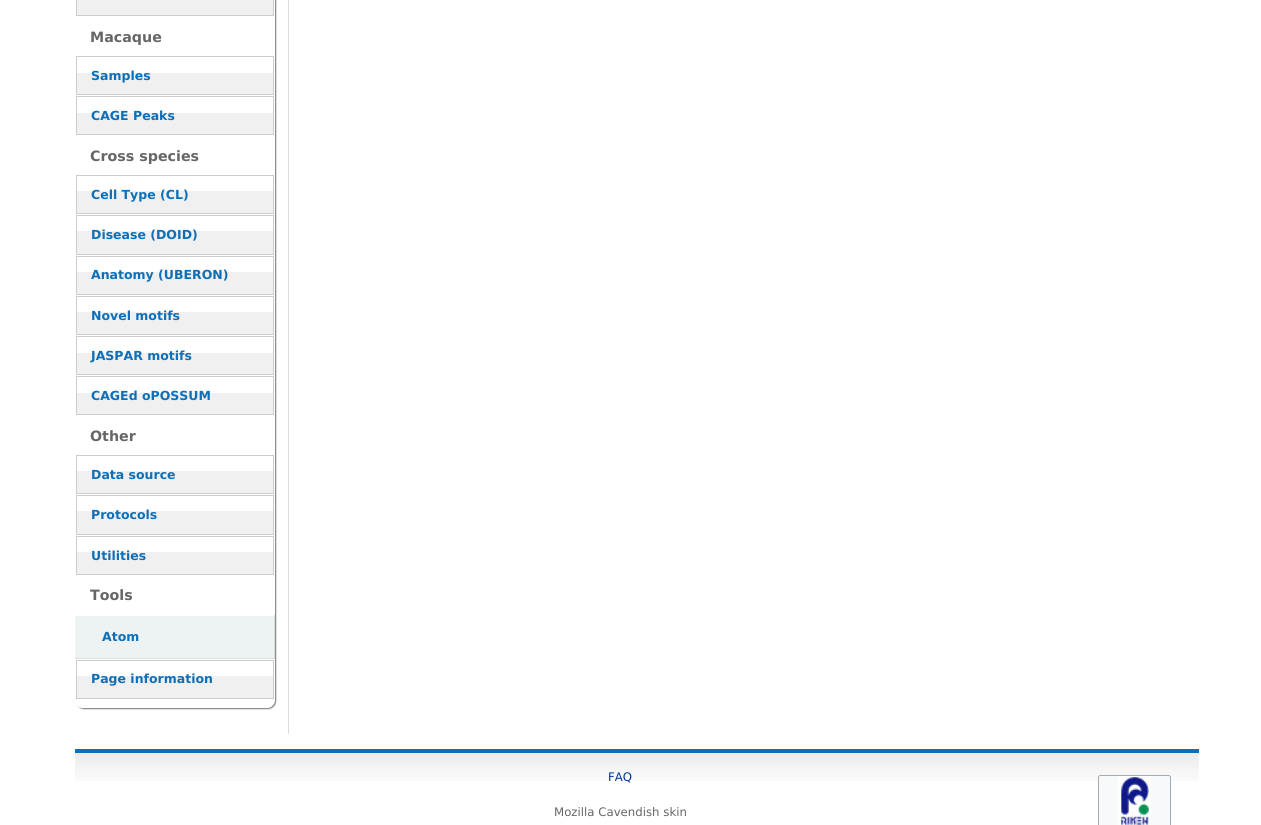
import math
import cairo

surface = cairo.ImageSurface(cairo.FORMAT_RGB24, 1261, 825)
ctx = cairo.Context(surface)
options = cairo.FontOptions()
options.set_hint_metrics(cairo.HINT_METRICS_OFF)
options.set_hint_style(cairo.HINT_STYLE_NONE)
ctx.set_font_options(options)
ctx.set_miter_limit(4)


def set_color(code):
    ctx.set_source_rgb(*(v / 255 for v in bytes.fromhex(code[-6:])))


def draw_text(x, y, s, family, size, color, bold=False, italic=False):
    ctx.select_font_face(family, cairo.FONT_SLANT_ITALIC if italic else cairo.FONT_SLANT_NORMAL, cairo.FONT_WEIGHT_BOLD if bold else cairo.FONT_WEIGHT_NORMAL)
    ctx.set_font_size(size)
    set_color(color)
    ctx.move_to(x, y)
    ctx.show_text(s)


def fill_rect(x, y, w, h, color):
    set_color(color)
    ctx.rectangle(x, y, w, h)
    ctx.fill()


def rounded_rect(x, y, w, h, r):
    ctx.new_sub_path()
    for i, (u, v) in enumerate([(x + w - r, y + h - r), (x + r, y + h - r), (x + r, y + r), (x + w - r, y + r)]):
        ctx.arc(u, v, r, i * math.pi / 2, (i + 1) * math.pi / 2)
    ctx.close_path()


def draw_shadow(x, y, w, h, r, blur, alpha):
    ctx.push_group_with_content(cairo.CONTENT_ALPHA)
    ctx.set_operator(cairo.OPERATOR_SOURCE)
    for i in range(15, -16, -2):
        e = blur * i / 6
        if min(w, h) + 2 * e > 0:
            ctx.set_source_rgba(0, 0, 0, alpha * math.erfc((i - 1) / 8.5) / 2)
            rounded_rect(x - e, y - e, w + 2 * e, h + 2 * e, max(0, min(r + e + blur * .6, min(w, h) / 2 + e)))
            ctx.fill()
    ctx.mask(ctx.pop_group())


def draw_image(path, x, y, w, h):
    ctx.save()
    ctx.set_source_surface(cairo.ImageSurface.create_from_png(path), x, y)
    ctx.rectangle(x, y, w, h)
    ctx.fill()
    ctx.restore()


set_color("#ffffff")
ctx.paint()
fill_rect(288, 0, 1, 734, "#dddddd")
ctx.save()
ctx.set_fill_rule(cairo.FILL_RULE_EVEN_ODD)
ctx.new_path()
ctx.move_to(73, 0)
ctx.line_to(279, 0)
ctx.line_to(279, 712)
ctx.line_to(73, 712)
ctx.close_path()
ctx.move_to(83, -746)
ctx.line_to(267, -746)
ctx.curve_to(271.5, -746, 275, -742.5, 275, -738)
ctx.line_to(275, 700)
ctx.curve_to(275, 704.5, 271.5, 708, 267, 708)
ctx.line_to(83, 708)
ctx.curve_to(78.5, 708, 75, 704.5, 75, 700)
ctx.line_to(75, -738)
ctx.curve_to(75, -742.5, 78.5, -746, 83, -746)
ctx.close_path()
ctx.clip()
set_color("#808080")
draw_shadow(76, -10, 200, 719, 8, 0.5, 1)
ctx.restore()
set_color("#f0f0f0")
ctx.rectangle(76.5, -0.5, 197, 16)
ctx.fill_preserve()
set_color("#cccccc")
ctx.set_line_width(1)
ctx.stroke()
draw_text(90, 42, "Macaque", "DejaVu Sans", 14.25, "#666666", bold=True)
fill_rect(77, 73, 196, 21, "#f0f0f0")
ctx.rectangle(76.5, 56.5, 197, 38)
set_color("#cccccc")
ctx.stroke()
draw_text(91, 80, "Samples", "DejaVu Sans", 12.5, "#0d6fb8", bold=True)
fill_rect(77, 113, 196, 21, "#f0f0f0")
ctx.rectangle(76.5, 96.5, 197, 38)
set_color("#cccccc")
ctx.stroke()
draw_text(91, 120, "CAGE Peaks", "DejaVu Sans", 12.5, "#0d6fb8", bold=True)
draw_text(90, 161, "Cross species", "DejaVu Sans", 14.25, "#666666", bold=True)
fill_rect(77, 191, 196, 22, "#f0f0f0")
ctx.rectangle(76.5, 175.5, 197, 38)
set_color("#cccccc")
ctx.stroke()
draw_text(91, 199, "Cell Type (CL)", "DejaVu Sans", 12.5, "#0d6fb8", bold=True)
fill_rect(77, 231, 196, 23, "#f0f0f0")
ctx.rectangle(76.5, 215.5, 197, 39)
set_color("#cccccc")
ctx.stroke()
draw_text(91, 239, "Disease (DOID)", "DejaVu Sans", 12.5, "#0d6fb8", bold=True)
fill_rect(77, 272, 196, 22, "#f0f0f0")
ctx.rectangle(76.5, 256.5, 197, 38)
set_color("#cccccc")
ctx.stroke()
draw_text(91, 279, "Anatomy (UBERON)", "DejaVu Sans", 12.5, "#0d6fb8", bold=True)
fill_rect(77, 312, 196, 22, "#f0f0f0")
ctx.rectangle(76.5, 296.5, 197, 38)
set_color("#cccccc")
ctx.stroke()
draw_text(91, 320, "Novel motifs", "DejaVu Sans", 12.5, "#0d6fb8", bold=True)
fill_rect(77, 353, 196, 21, "#f0f0f0")
ctx.rectangle(76.5, 336.5, 197, 38)
set_color("#cccccc")
ctx.stroke()
draw_text(91, 360, "JASPAR motifs", "DejaVu Sans", 12.5, "#0d6fb8", bold=True)
fill_rect(77, 393, 196, 21, "#f0f0f0")
ctx.rectangle(76.5, 376.5, 197, 38)
set_color("#cccccc")
ctx.stroke()
draw_text(91, 400, "CAGEd oPOSSUM", "DejaVu Sans", 12.5, "#0d6fb8", bold=True)
draw_text(90, 441, "Other", "DejaVu Sans", 14.25, "#666666", bold=True)
fill_rect(77, 471, 196, 22, "#f0f0f0")
ctx.rectangle(76.5, 455.5, 197, 38)
set_color("#cccccc")
ctx.stroke()
draw_text(91, 479, "Data source", "DejaVu Sans", 12.5, "#0d6fb8", bold=True)
fill_rect(77, 511, 196, 23, "#f0f0f0")
ctx.rectangle(76.5, 495.5, 197, 39)
set_color("#cccccc")
ctx.stroke()
draw_text(91, 519, "Protocols", "DejaVu Sans", 12.5, "#0d6fb8", bold=True)
fill_rect(77, 552, 196, 22, "#f0f0f0")
ctx.rectangle(76.5, 536.5, 197, 38)
set_color("#cccccc")
ctx.stroke()
draw_text(91, 560, "Utilities", "DejaVu Sans", 12.5, "#0d6fb8", bold=True)
draw_text(90, 600, "Tools", "DejaVu Sans", 14.25, "#666666", bold=True)
fill_rect(75, 616, 199, 42, "#edf2f2")
fill_rect(274, 615, 1, 44, "#dddddd")
fill_rect(75, 658, 200, 1, "#dddddd")
draw_text(102, 641, "Atom", "DejaVu Sans", 12.5, "#0d6fb8", bold=True)
fill_rect(77, 676, 196, 22, "#f0f0f0")
ctx.rectangle(76.5, 660.5, 197, 38)
set_color("#cccccc")
ctx.stroke()
draw_text(91, 683, "Page information", "DejaVu Sans", 12.5, "#0d6fb8", bold=True)
draw_image("assets/img1.png", 75, 753, 1124, 28)
fill_rect(75, 749, 1124, 4, "#0d6fb8")
draw_text(608, 781, "FAQ", "DejaVu Sans", 11.75, "#003399")
set_color("#f8f9fa")
rounded_rect(1098.5, 775.5, 72, 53, 2)
ctx.fill_preserve()
set_color("#a2a9b1")
ctx.stroke()
draw_image("assets/img2.png", 1118, 776, 33, 49)
draw_text(554, 816, "Mozilla Cavendish skin", "DejaVu Sans", 11.75, "#666666")
surface.write_to_png("output.png")
